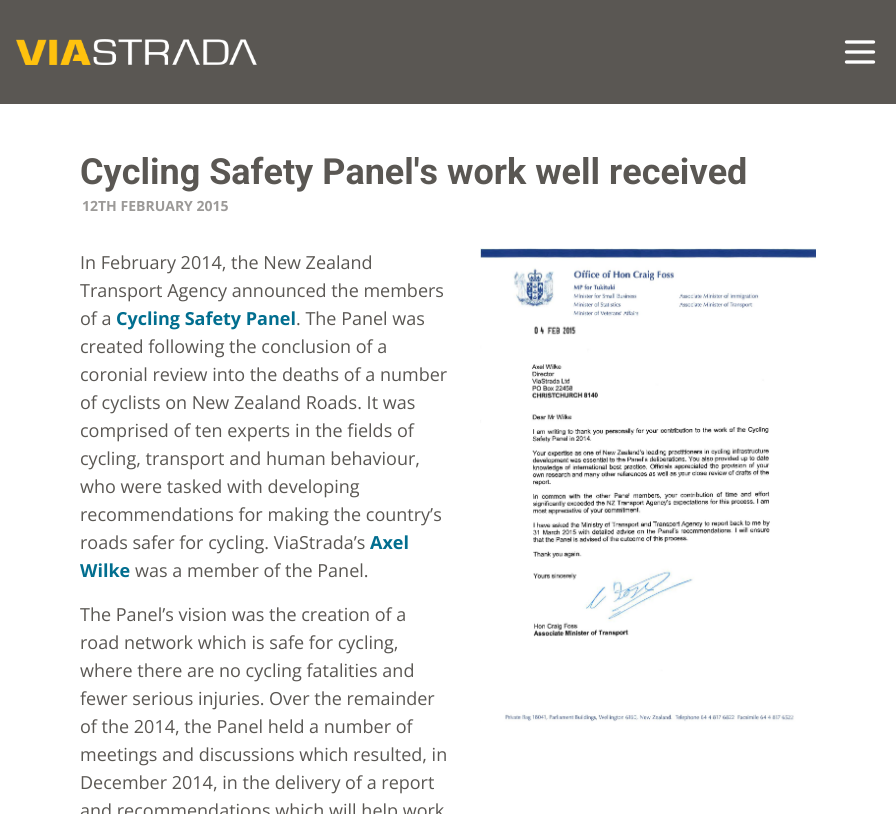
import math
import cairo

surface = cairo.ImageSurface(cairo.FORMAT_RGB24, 896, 814)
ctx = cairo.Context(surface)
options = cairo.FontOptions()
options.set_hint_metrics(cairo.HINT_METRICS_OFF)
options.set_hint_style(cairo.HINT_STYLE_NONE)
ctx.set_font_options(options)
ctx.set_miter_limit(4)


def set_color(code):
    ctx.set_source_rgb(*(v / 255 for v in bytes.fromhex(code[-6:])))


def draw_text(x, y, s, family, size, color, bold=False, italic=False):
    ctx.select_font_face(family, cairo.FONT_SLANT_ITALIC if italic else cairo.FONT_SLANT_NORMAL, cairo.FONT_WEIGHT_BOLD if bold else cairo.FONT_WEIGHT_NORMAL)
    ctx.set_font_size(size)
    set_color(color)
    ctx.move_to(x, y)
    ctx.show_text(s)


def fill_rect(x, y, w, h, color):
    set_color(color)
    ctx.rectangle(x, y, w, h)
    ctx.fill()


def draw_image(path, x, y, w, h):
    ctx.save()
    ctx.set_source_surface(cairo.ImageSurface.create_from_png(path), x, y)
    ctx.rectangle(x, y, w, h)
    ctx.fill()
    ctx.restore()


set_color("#ffffff")
ctx.paint()
fill_rect(0, 0, 896, 104, "#5a5753")
draw_image("assets/img1.png", 16, 39, 241, 26)
ctx.new_path()
ctx.move_to(846.5, 42)
ctx.line_to(873.5, 42)
ctx.move_to(846.5, 52)
ctx.line_to(873.5, 52)
ctx.move_to(846.5, 62)
ctx.line_to(873.5, 62)
set_color("#ffffff")
ctx.set_line_width(3.3)
ctx.set_line_cap(cairo.LINE_CAP_ROUND)
ctx.set_line_join(cairo.LINE_JOIN_ROUND)
ctx.stroke()
draw_text(80, 184, "Cycling Safety Panel's work well received", "Roboto", 36, "#5a5753", bold=True)
draw_text(82, 211, "12TH FEBRUARY 2015", "Open Sans", 14, "#9c9a98", bold=True)
draw_text(80, 269, "In February 2014, the New Zealand", "Open Sans", 18, "#5a5753")
draw_text(80, 297, "Transport Agency announced the members", "Open Sans", 18, "#5a5753")
draw_text(80, 325, "of a", "Open Sans", 18, "#5a5753")
draw_text(116, 325, "Cycling Safety Panel", "Open Sans", 18, "#016e8f", bold=True)
draw_text(296, 325, ". The Panel was", "Open Sans", 18, "#5a5753")
draw_text(80, 353, "created following the conclusion of a", "Open Sans", 18, "#5a5753")
draw_text(80, 381, "coronial review into the deaths of a number", "Open Sans", 18, "#5a5753")
draw_text(80, 409, "of cyclists on New Zealand Roads. It was", "Open Sans", 18, "#5a5753")
draw_text(80, 437, "comprised of ten experts in the fields of", "Open Sans", 18, "#5a5753")
draw_text(80, 465, "cycling, transport and human behaviour,", "Open Sans", 18, "#5a5753")
draw_text(80, 493, "who were tasked with developing", "Open Sans", 18, "#5a5753")
draw_text(80, 521, "recommendations for making the country’s", "Open Sans", 18, "#5a5753")
draw_text(80, 549, "roads safer for cycling. ViaStrada’s", "Open Sans", 18, "#5a5753")
draw_text(370, 549, "Axel", "Open Sans", 18, "#016e8f", bold=True)
draw_text(80, 577, "Wilke", "Open Sans", 18, "#016e8f", bold=True)
draw_text(135, 577, "was a member of the Panel.", "Open Sans", 18, "#5a5753")
draw_text(80, 621, "The Panel’s vision was the creation of a", "Open Sans", 18, "#5a5753")
draw_text(80, 649, "road network which is safe for cycling,", "Open Sans", 18, "#5a5753")
draw_text(80, 677, "where there are no cycling fatalities and", "Open Sans", 18, "#5a5753")
draw_text(80, 705, "fewer serious injuries. Over the remainder", "Open Sans", 18, "#5a5753")
draw_text(80, 733, "of the 2014, the Panel held a number of", "Open Sans", 18, "#5a5753")
draw_text(80, 761, "meetings and discussions which resulted, in", "Open Sans", 18, "#5a5753")
draw_text(80, 789, "December 2014, in the delivery of a report", "Open Sans", 18, "#5a5753")
draw_text(80, 817, "and recommendations which will help work", "Open Sans", 18, "#5a5753")
draw_image("assets/img2.png", 480, 248, 336, 474)
surface.write_to_png("output.png")
